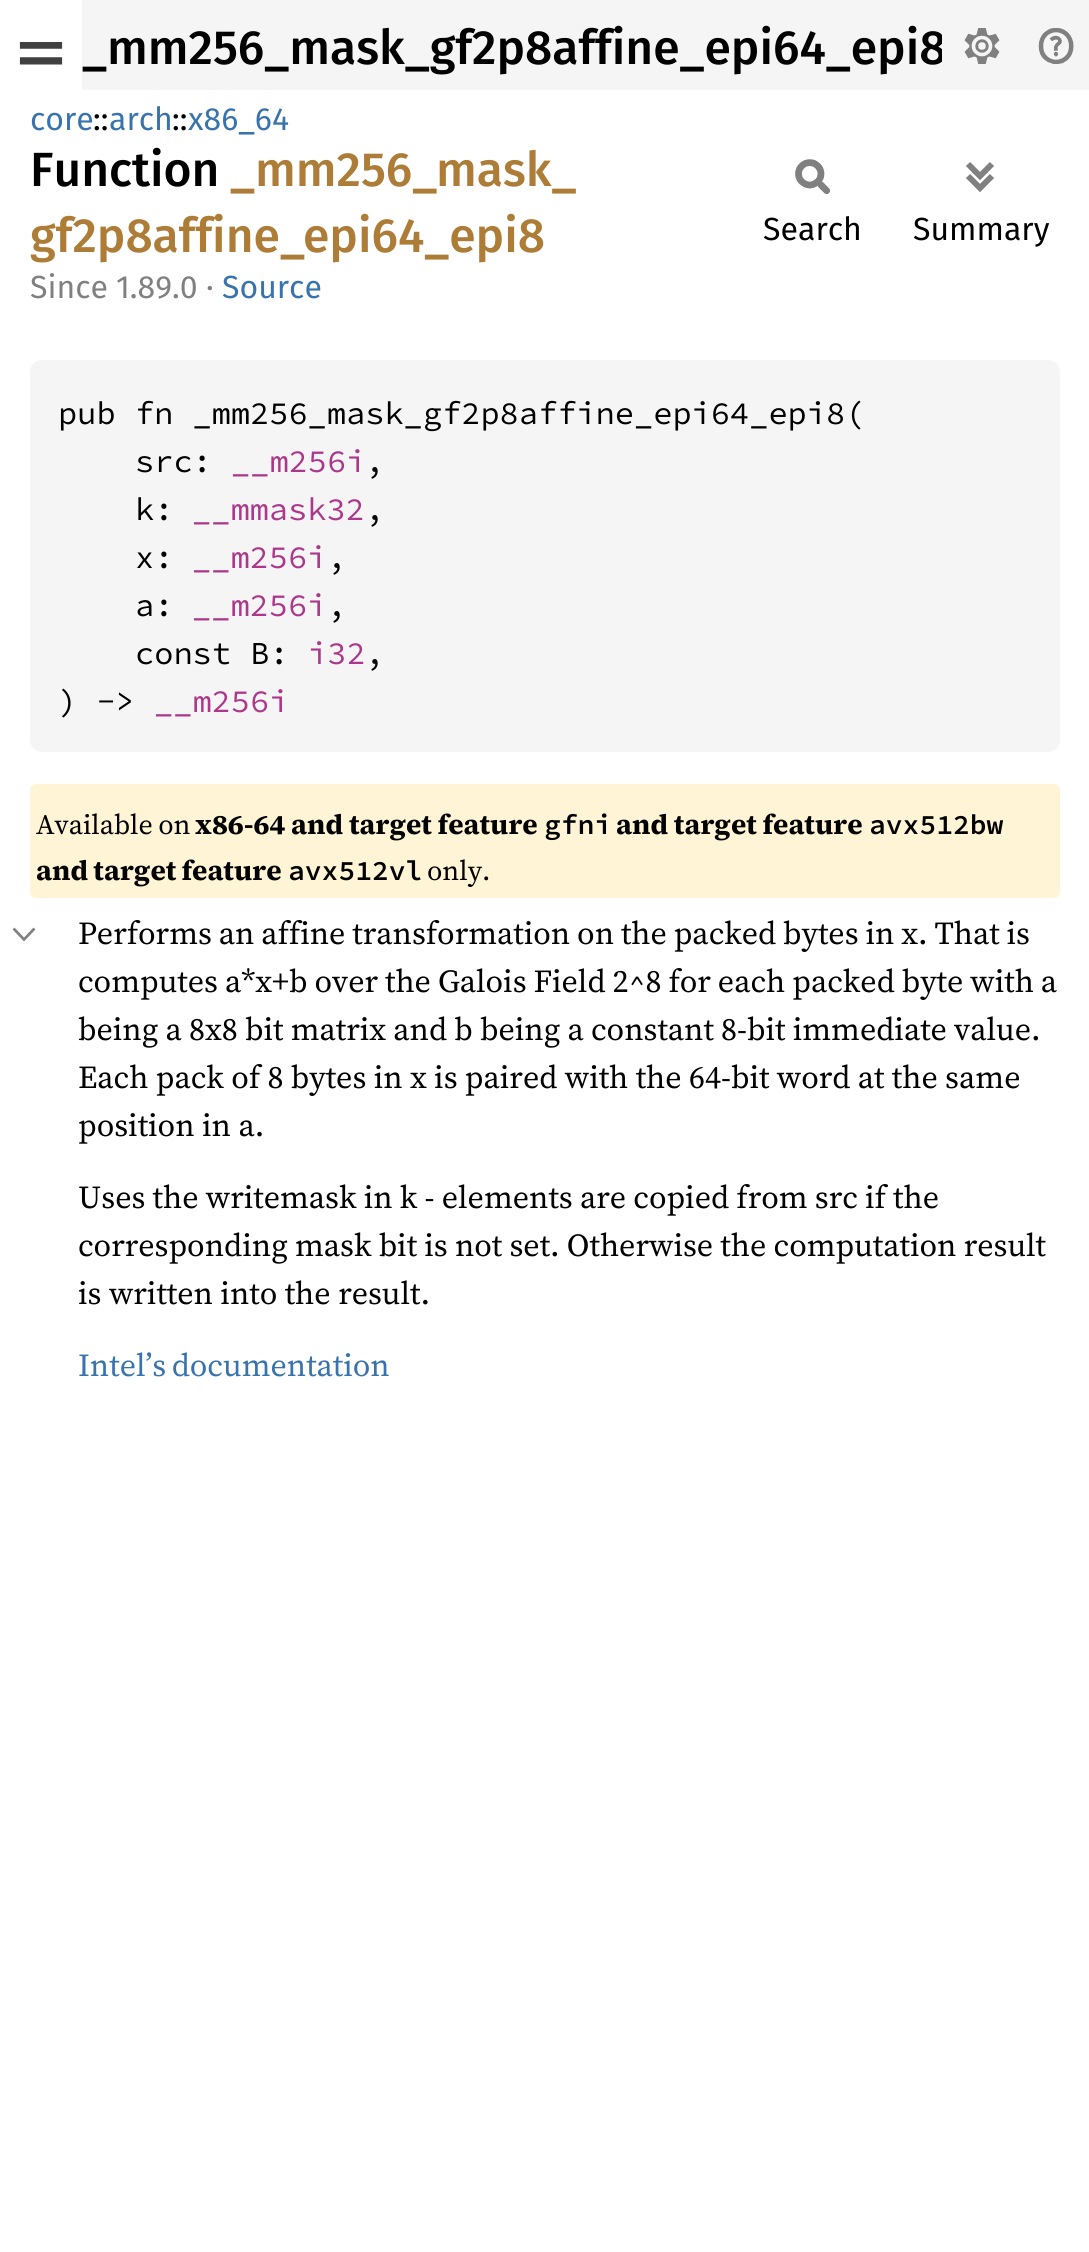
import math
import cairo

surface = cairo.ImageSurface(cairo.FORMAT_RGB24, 1089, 2252)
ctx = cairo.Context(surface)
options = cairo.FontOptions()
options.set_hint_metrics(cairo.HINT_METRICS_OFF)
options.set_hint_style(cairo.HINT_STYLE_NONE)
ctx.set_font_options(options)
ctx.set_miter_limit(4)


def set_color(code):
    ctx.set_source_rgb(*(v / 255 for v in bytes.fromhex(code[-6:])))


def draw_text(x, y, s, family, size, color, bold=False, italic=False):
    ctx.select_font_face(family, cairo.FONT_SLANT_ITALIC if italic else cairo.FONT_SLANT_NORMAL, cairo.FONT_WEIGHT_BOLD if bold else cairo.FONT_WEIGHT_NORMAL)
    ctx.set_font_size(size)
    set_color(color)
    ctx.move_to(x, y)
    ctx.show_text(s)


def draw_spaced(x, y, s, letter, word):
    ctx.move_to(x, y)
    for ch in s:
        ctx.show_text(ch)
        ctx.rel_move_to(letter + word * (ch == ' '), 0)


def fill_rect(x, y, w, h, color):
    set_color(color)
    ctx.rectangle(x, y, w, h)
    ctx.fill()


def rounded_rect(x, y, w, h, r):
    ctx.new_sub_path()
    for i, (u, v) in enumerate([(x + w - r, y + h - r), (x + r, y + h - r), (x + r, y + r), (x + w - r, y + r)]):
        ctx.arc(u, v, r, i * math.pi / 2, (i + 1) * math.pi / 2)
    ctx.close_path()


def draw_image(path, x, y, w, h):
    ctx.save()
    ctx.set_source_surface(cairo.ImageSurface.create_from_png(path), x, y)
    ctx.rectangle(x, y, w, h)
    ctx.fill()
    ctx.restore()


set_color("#ffffff")
ctx.paint()
fill_rect(82, 0, 1007, 90, "#f5f5f5")
draw_image("assets/img1.png", 19, 42, 44, 23)
ctx.save()
ctx.rectangle(82, 12, 860, 66)
ctx.clip()
draw_text(82, 64, "_mm256_mask_gf2p8affine_epi64_epi8", "Fira Sans Medium", 48, "#000000")
ctx.restore()
draw_image("assets/img2.png", 964, 28, 36, 36)
draw_image("assets/img3.png", 1038, 28, 36, 36)
draw_text(30, 130, "core", "Fira Sans", 32, "#3873ad")
draw_text(93, 130, "::", "Fira Sans", 32, "#000000")
draw_text(109, 130, "arch", "Fira Sans", 32, "#3873ad")
draw_text(172, 130, "::", "Fira Sans", 32, "#000000")
draw_text(188, 130, "x86_64", "Fira Sans", 32, "#3873ad")
draw_text(30, 186, "Function", "Fira Sans Medium", 48, "#000000")
draw_text(230, 186, "_mm256_", "Fira Sans Medium", 48, "#ad7c37")
draw_text(436, 186, "mask_", "Fira Sans Medium", 48, "#ad7c37")
draw_text(30, 252, "gf2p8affine_", "Fira Sans Medium", 48, "#ad7c37")
draw_text(303, 252, "epi64_epi8", "Fira Sans Medium", 48, "#ad7c37")
draw_image("assets/img4.png", 795, 159, 35, 35)
draw_text(763, 240, "Search", "Fira Sans", 32, "#000000")
draw_image("assets/img5.png", 966, 162, 28, 31)
draw_text(913, 240, "Summary", "Fira Sans", 32, "#000000")
draw_text(30, 298, "Since", "Fira Sans", 32, "#808080")
draw_text(116, 298, "1.89.0", "Fira Sans", 32, "#808080")
draw_text(206, 298, "·", "Fira Sans", 32, "#808080")
draw_text(222, 298, "Source", "Fira Sans", 32, "#3873ad")
set_color("#f5f5f5")
rounded_rect(30, 360, 1030, 392, 12)
ctx.fill()
draw_text(58, 424, "pub fn _mm256_mask_gf2p8affine_epi64_epi8(", "Source Code Pro", 32, "#000000")
draw_text(135, 472, "src:", "Source Code Pro", 32, "#000000")
draw_text(231, 472, "__m256i", "Source Code Pro", 32, "#ad378a")
draw_text(365, 472, ",", "Source Code Pro", 32, "#000000")
draw_text(135, 520, "k:", "Source Code Pro", 32, "#000000")
draw_text(192, 520, "__mmask32", "Source Code Pro", 32, "#ad378a")
draw_text(365, 520, ",", "Source Code Pro", 32, "#000000")
draw_text(135, 568, "x:", "Source Code Pro", 32, "#000000")
draw_text(192, 568, "__m256i", "Source Code Pro", 32, "#ad378a")
draw_text(327, 568, ",", "Source Code Pro", 32, "#000000")
draw_text(135, 616, "a:", "Source Code Pro", 32, "#000000")
draw_text(192, 616, "__m256i", "Source Code Pro", 32, "#ad378a")
draw_text(327, 616, ",", "Source Code Pro", 32, "#000000")
draw_text(135, 664, "const B:", "Source Code Pro", 32, "#000000")
draw_text(308, 664, "i32", "Source Code Pro", 32, "#ad378a")
draw_text(365, 664, ",", "Source Code Pro", 32, "#000000")
draw_text(58, 712, ") ->", "Source Code Pro", 32, "#000000")
draw_text(154, 712, "__m256i", "Source Code Pro", 32, "#ad378a")
set_color("#fff5d6")
rounded_rect(30, 784, 1030, 114, 6)
ctx.fill()
ctx.select_font_face("Source Serif 4")
ctx.set_font_size(28)
set_color("#000000")
draw_spaced(36, 834, "Available on", 0, -1)
ctx.select_font_face("Source Serif 4", cairo.FONT_SLANT_NORMAL, cairo.FONT_WEIGHT_BOLD)
draw_spaced(195, 834, "x86-64 and target feature", 0, -0.5)
draw_text(544, 834, "gfni", "Source Code Pro SemiBold", 28, "#000000")
ctx.select_font_face("Source Serif 4", cairo.FONT_SLANT_NORMAL, cairo.FONT_WEIGHT_BOLD)
draw_spaced(616, 834, "and target feature", 0, -0.5)
draw_text(869, 834, "avx512bw", "Source Code Pro SemiBold", 28, "#000000")
ctx.select_font_face("Source Serif 4", cairo.FONT_SLANT_NORMAL, cairo.FONT_WEIGHT_BOLD)
draw_spaced(36, 880, "and target feature", 0, -1)
draw_text(288, 880, "avx512vl", "Source Code Pro SemiBold", 28, "#000000")
draw_text(427, 880, "only.", "Source Serif 4", 28, "#000000")
ctx.new_path()
ctx.move_to(13.5, 928.5)
ctx.line_to(24, 939.5)
ctx.line_to(34.5, 928.5)
set_color("#808080")
ctx.set_line_width(2.7)
ctx.stroke()
ctx.set_font_size(32)
set_color("#000000")
draw_spaced(78, 944, "Performs an affine transformation on the packed bytes in x. That is", 0, -0.6)
draw_spaced(78, 992, "computes a*x+b over the Galois Field 2^8 for each packed byte with a", 0, -0.5)
draw_spaced(78, 1040, "being a 8x8 bit matrix and b being a constant 8-bit immediate value.", 0, -0.25)
draw_spaced(78, 1088, "Each pack of 8 bytes in x is paired with the 64-bit word at the same", 0, -0.1)
draw_text(78, 1136, "position in a.", "Source Serif 4", 32, "#000000")
draw_spaced(78, 1208, "Uses the writemask in k - elements are copied from src if the", 0, -0.25)
draw_spaced(78, 1256, "corresponding mask bit is not set. Otherwise the computation result", 0, -0.25)
draw_text(78, 1304, "is written into the result.", "Source Serif 4", 32, "#000000")
set_color("#3873ad")
draw_spaced(78, 1376, "Intel’s documentation", 0, -2)
surface.write_to_png("output.png")
